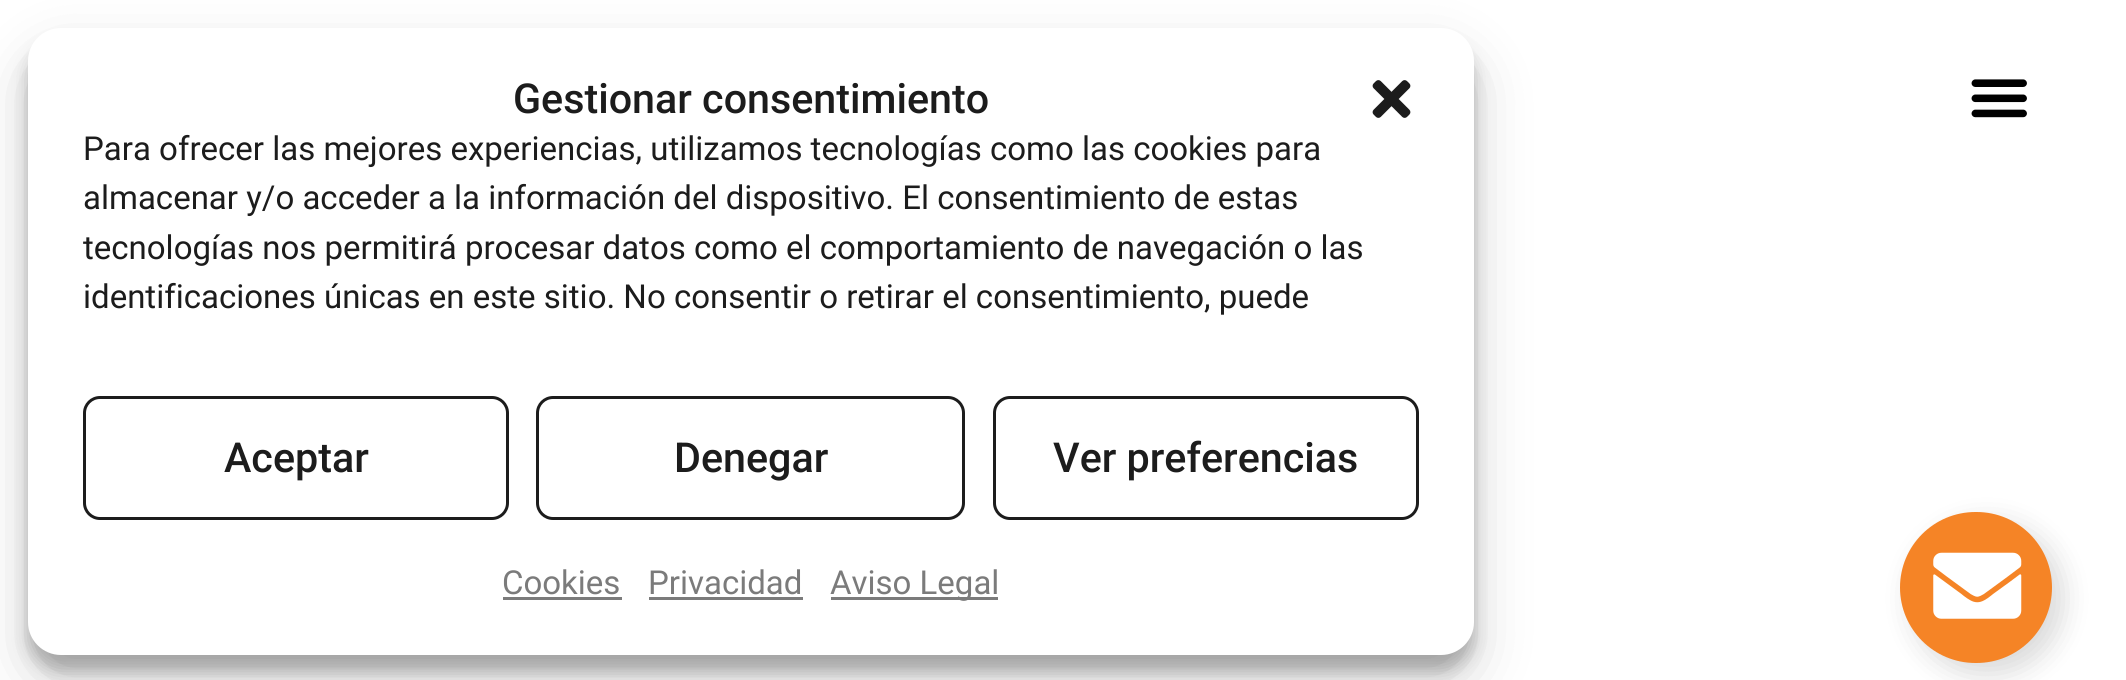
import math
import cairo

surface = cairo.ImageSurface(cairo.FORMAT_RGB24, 2126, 680)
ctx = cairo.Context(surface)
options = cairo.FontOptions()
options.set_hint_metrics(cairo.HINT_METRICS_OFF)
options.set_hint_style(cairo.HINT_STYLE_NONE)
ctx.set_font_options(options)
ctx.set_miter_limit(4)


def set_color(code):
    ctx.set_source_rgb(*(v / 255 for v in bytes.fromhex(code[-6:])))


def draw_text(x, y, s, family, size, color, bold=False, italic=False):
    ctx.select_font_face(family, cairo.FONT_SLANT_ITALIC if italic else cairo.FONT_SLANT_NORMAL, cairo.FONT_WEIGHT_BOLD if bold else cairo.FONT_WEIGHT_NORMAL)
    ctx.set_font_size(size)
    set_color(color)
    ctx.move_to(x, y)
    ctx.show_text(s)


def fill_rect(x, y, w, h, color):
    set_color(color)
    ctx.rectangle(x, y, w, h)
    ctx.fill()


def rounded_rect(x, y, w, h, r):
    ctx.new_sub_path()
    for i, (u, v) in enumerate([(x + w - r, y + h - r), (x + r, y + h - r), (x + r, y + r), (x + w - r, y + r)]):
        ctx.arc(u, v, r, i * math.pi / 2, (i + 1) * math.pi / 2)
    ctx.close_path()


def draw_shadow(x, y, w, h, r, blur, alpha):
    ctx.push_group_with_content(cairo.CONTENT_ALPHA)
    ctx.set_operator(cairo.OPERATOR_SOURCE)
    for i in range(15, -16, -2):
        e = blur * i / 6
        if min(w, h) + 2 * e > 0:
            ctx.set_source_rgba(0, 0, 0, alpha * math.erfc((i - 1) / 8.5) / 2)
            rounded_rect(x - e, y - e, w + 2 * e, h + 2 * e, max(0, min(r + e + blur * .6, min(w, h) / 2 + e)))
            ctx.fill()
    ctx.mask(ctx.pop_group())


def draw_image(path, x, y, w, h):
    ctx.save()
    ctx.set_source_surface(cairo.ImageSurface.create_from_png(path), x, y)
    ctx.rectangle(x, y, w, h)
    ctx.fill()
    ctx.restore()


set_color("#ffffff")
ctx.paint()
set_color("#000000")
draw_shadow(28, 44, 1446, 627, 33, 8, 0.23)
draw_shadow(28, 55, 1446, 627, 33, 27.5, 0.19)
set_color("#ffffff")
rounded_rect(28, 28, 1446, 627, 33)
ctx.fill()
draw_text(513, 113, "Gestionar consentimiento", "Roboto Medium", 41.25, "#1c1c1c")
draw_image("assets/img1.png", 1372, 80, 39, 38)
draw_text(83, 160, "Para ofrecer las mejores experiencias, utilizamos tecnologías como las cookies para", "Roboto", 33, "#1c1c1c")
draw_text(83, 209, "almacenar y/o acceder a la información del dispositivo. El consentimiento de estas", "Roboto", 33, "#1c1c1c")
ctx.save()
ctx.rectangle(83, 124, 1336, 217)
ctx.clip()
draw_text(83, 259, "tecnologías nos permitirá procesar datos como el comportamiento de navegación o las", "Roboto", 33, "#1c1c1c")
ctx.restore()
draw_text(83, 308, "identificaciones únicas en este sitio. No consentir o retirar el consentimiento, puede", "Roboto", 33, "#1c1c1c")
rounded_rect(84.5, 397.5, 423, 121, 15.5)
ctx.set_line_width(3)
ctx.stroke()
draw_text(224, 472, "Aceptar", "Roboto Medium", 41.25, "#1c1c1c")
rounded_rect(537.5, 397.5, 426, 121, 15.5)
ctx.stroke()
draw_text(674, 472, "Denegar", "Roboto Medium", 41.25, "#1c1c1c")
rounded_rect(994.5, 397.5, 423, 121, 15.5)
ctx.stroke()
draw_text(1053, 472, "Ver preferencias", "Roboto Medium", 41.25, "#1c1c1c")
draw_text(502, 594, "Cookies", "Roboto", 33, "#7b7b7b")
fill_rect(503, 597, 119, 3, "#7b7b7b")
draw_text(648, 594, "Privacidad", "Roboto", 33, "#7b7b7b")
fill_rect(649, 597, 154, 3, "#7b7b7b")
fill_rect(831, 597, 167, 3, "#7b7b7b")
draw_text(830, 594, "Aviso Legal", "Roboto", 33, "#7b7b7b")
draw_image("assets/img2.png", 1971, 79, 56, 39)
set_color("#000000")
draw_shadow(1911, 523, 152, 151, 75.5, 14, 0.15)
set_color("#f58426")
rounded_rect(1900, 512, 152, 151, 75.5)
ctx.fill()
draw_image("assets/img3.png", 1933, 552, 89, 67)
surface.write_to_png("output.png")
